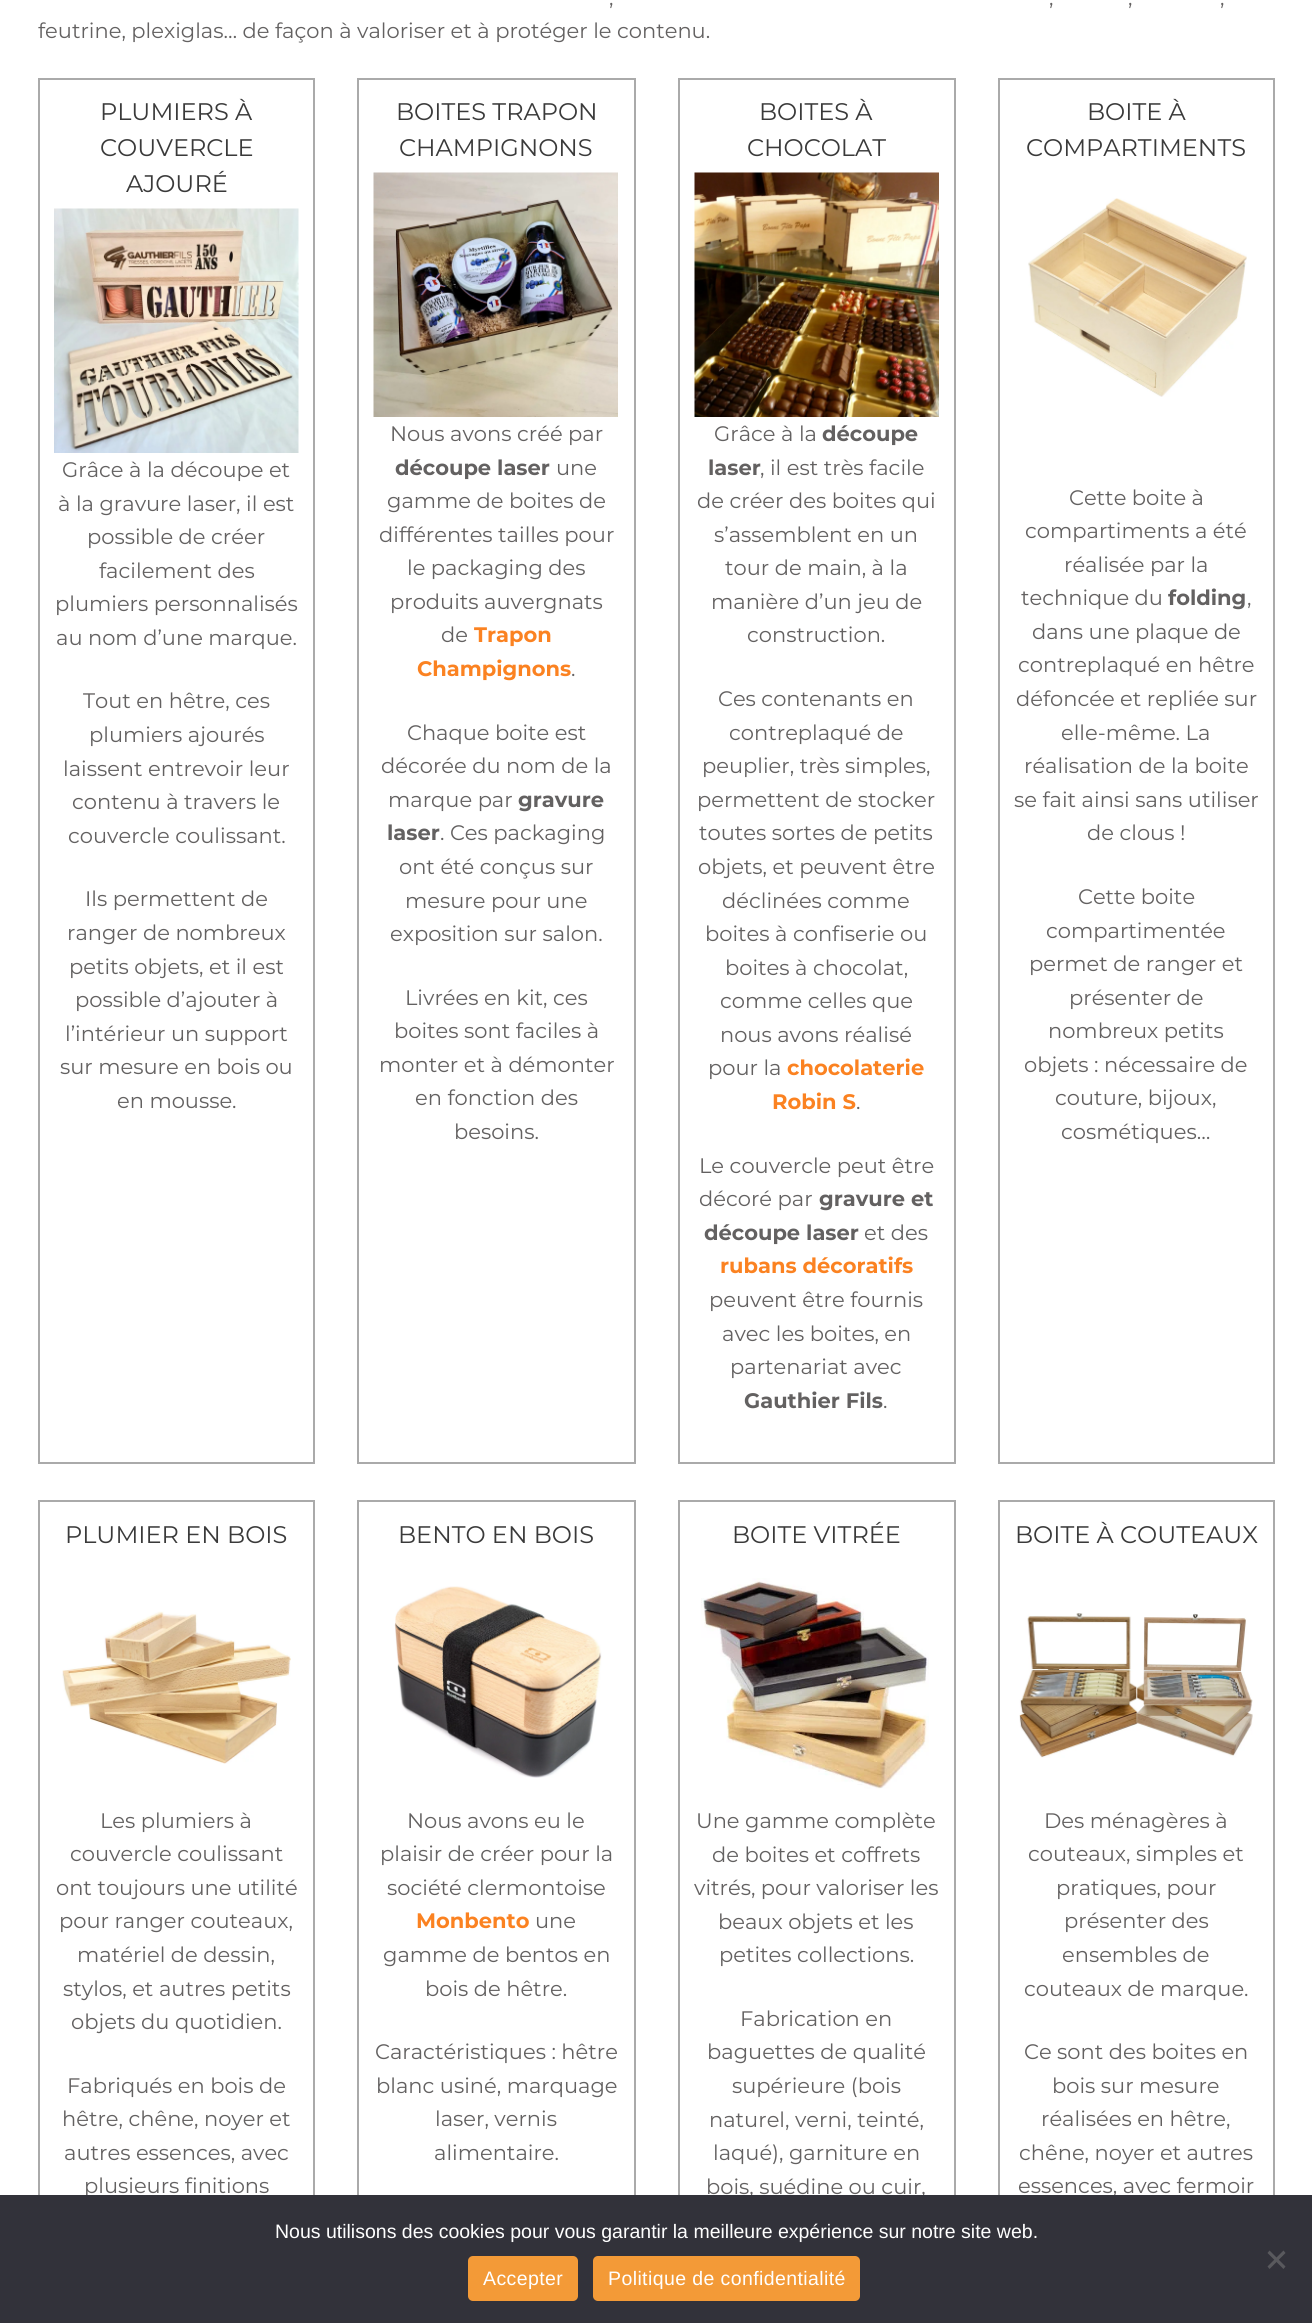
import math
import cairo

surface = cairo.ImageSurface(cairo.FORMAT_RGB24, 1312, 2323)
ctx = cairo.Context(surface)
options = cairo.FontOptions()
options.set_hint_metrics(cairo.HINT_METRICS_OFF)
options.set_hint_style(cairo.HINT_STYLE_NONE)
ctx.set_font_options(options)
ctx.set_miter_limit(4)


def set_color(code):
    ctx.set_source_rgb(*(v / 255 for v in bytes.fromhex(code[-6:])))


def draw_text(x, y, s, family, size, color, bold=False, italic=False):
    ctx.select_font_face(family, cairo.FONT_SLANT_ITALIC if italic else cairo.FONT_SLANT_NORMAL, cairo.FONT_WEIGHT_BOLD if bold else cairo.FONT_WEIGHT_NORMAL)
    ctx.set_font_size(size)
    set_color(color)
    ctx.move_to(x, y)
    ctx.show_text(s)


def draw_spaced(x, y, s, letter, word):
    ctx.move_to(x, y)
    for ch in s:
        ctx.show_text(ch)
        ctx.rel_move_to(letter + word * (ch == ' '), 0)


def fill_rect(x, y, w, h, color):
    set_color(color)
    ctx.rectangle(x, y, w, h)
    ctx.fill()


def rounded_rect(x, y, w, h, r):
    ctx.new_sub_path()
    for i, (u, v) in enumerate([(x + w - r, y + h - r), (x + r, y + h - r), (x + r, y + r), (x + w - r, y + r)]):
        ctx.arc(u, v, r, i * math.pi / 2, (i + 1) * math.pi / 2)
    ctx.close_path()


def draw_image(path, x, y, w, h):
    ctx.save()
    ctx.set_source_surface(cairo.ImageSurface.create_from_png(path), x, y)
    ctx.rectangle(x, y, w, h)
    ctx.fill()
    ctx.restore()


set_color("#ffffff")
ctx.paint()
draw_text(609, 5, ",", "Montserrat", 21, "#636161")
draw_text(1049, 5, ",", "Montserrat", 21, "#636161")
draw_text(1128, 5, ",", "Montserrat", 21, "#636161")
draw_text(1220, 5, ",", "Montserrat", 21, "#636161")
draw_text(38, 38, "feutrine, plexiglas… de façon à valoriser et à protéger le contenu.", "Montserrat", 21, "#636161")
ctx.rectangle(39, 79, 275, 1384)
set_color("#aaaaaa")
ctx.stroke()
draw_text(100, 120, "PLUMIERS À", "Montserrat", 24, "#3a3a3a")
draw_text(100, 156, "COUVERCLE", "Montserrat", 24, "#3a3a3a")
draw_text(126, 192, "AJOURÉ", "Montserrat", 24, "#3a3a3a")
draw_image("assets/img1.png", 54, 208, 245, 245)
draw_text(62, 477, "Grâce à la découpe et", "Montserrat", 21, "#636161")
draw_text(58, 511, "à la gravure laser, il est", "Montserrat", 21, "#636161")
draw_text(87, 544, "possible de créer", "Montserrat", 21, "#636161")
draw_text(99, 578, "facilement des", "Montserrat", 21, "#636161")
draw_text(55, 611, "plumiers personnalisés", "Montserrat", 21, "#636161")
draw_text(56, 645, "au nom d’une marque.", "Montserrat", 21, "#636161")
draw_text(83, 708, "Tout en hêtre, ces", "Montserrat", 21, "#636161")
draw_text(89, 742, "plumiers ajourés", "Montserrat", 21, "#636161")
draw_text(63, 776, "laissent entrevoir leur", "Montserrat", 21, "#636161")
draw_text(72, 809, "contenu à travers le", "Montserrat", 21, "#636161")
draw_text(68, 843, "couvercle coulissant.", "Montserrat", 21, "#636161")
draw_text(85, 906, "Ils permettent de", "Montserrat", 21, "#636161")
draw_text(67, 940, "ranger de nombreux", "Montserrat", 21, "#636161")
draw_text(69, 974, "petits objets, et il est", "Montserrat", 21, "#636161")
draw_text(75, 1007, "possible d’ajouter à", "Montserrat", 21, "#636161")
draw_text(65, 1041, "l’intérieur un support", "Montserrat", 21, "#636161")
draw_text(60, 1074, "sur mesure en bois ou", "Montserrat", 21, "#636161")
draw_text(117, 1108, "en mousse.", "Montserrat", 21, "#636161")
ctx.rectangle(358, 79, 277, 1384)
set_color("#aaaaaa")
ctx.stroke()
draw_text(396, 120, "BOITES TRAPON", "Montserrat", 24, "#3a3a3a")
draw_text(399, 156, "CHAMPIGNONS", "Montserrat", 24, "#3a3a3a")
draw_image("assets/img2.png", 373, 172, 245, 245)
draw_text(390, 441, "Nous avons créé par", "Montserrat", 21, "#636161")
draw_text(395, 475, "découpe laser", "Montserrat", 21, "#636161", bold=True)
draw_text(556, 475, "une", "Montserrat", 21, "#636161")
draw_text(387, 508, "gamme de boites de", "Montserrat", 21, "#636161")
draw_text(379, 542, "différentes tailles pour", "Montserrat", 21, "#636161")
draw_text(407, 575, "le packaging des", "Montserrat", 21, "#636161")
draw_text(390, 609, "produits auvergnats", "Montserrat", 21, "#636161")
draw_text(441, 642, "de", "Montserrat", 21, "#636161")
draw_text(474, 642, "Trapon", "Montserrat", 21, "#fb8221", bold=True)
draw_text(417, 676, "Champignons", "Montserrat", 21, "#fb8221", bold=True)
draw_text(571, 676, ".", "Montserrat", 21, "#636161")
draw_text(407, 740, "Chaque boite est", "Montserrat", 21, "#636161")
draw_text(381, 773, "décorée du nom de la", "Montserrat", 21, "#636161")
draw_text(388, 807, "marque par", "Montserrat", 21, "#636161")
draw_text(518, 807, "gravure", "Montserrat", 21, "#636161", bold=True)
draw_text(387, 840, "laser", "Montserrat", 21, "#636161", bold=True)
draw_text(440, 840, ". Ces packaging", "Montserrat", 21, "#636161")
draw_text(399, 874, "ont été conçus sur", "Montserrat", 21, "#636161")
draw_text(405, 908, "mesure pour une", "Montserrat", 21, "#636161")
draw_text(390, 941, "exposition sur salon.", "Montserrat", 21, "#636161")
draw_text(405, 1005, "Livrées en kit, ces", "Montserrat", 21, "#636161")
draw_text(394, 1038, "boites sont faciles à", "Montserrat", 21, "#636161")
draw_text(379, 1072, "monter et à démonter", "Montserrat", 21, "#636161")
draw_text(415, 1105, "en fonction des", "Montserrat", 21, "#636161")
draw_text(454, 1139, "besoins.", "Montserrat", 21, "#636161")
ctx.rectangle(679, 79, 276, 1384)
set_color("#aaaaaa")
ctx.stroke()
draw_text(759, 120, "BOITES À", "Montserrat", 24, "#3a3a3a")
draw_text(747, 156, "CHOCOLAT", "Montserrat", 24, "#3a3a3a")
draw_image("assets/img3.png", 694, 172, 245, 245)
draw_text(714, 441, "Grâce à la", "Montserrat", 21, "#636161")
draw_text(822, 441, "découpe", "Montserrat", 21, "#636161", bold=True)
draw_text(708, 475, "laser", "Montserrat", 21, "#636161", bold=True)
draw_text(760, 475, ", il est très facile", "Montserrat", 21, "#636161")
draw_text(697, 508, "de créer des boites qui", "Montserrat", 21, "#636161")
draw_text(714, 542, "s’assemblent en un", "Montserrat", 21, "#636161")
draw_text(725, 575, "tour de main, à la", "Montserrat", 21, "#636161")
draw_text(711, 609, "manière d’un jeu de", "Montserrat", 21, "#636161")
draw_text(747, 642, "construction.", "Montserrat", 21, "#636161")
draw_text(718, 706, "Ces contenants en", "Montserrat", 21, "#636161")
draw_text(729, 740, "contreplaqué de", "Montserrat", 21, "#636161")
draw_text(702, 773, "peuplier, très simples,", "Montserrat", 21, "#636161")
draw_text(697, 807, "permettent de stocker", "Montserrat", 21, "#636161")
draw_text(699, 840, "toutes sortes de petits", "Montserrat", 21, "#636161")
draw_text(698, 874, "objets, et peuvent être", "Montserrat", 21, "#636161")
draw_text(722, 908, "déclinées comme", "Montserrat", 21, "#636161")
draw_text(705, 941, "boites à confiserie ou", "Montserrat", 21, "#636161")
draw_text(725, 975, "boites à chocolat,", "Montserrat", 21, "#636161")
draw_text(720, 1008, "comme celles que", "Montserrat", 21, "#636161")
draw_text(720, 1042, "nous avons réalisé", "Montserrat", 21, "#636161")
draw_text(708, 1075, "pour la", "Montserrat", 21, "#636161")
draw_text(787, 1075, "chocolaterie", "Montserrat", 21, "#fb8221", bold=True)
draw_text(772, 1109, "Robin S", "Montserrat", 21, "#fb8221", bold=True)
draw_text(856, 1109, ".", "Montserrat", 21, "#636161")
draw_text(699, 1173, "Le couvercle peut être", "Montserrat", 21, "#636161")
draw_text(699, 1206, "décoré par", "Montserrat", 21, "#636161")
draw_text(819, 1206, "gravure et", "Montserrat", 21, "#636161", bold=True)
draw_text(704, 1240, "découpe laser", "Montserrat", 21, "#636161", bold=True)
draw_text(864, 1240, "et des", "Montserrat", 21, "#636161")
draw_text(720, 1273, "rubans décoratifs", "Montserrat", 21, "#fb8221", bold=True)
draw_text(709, 1307, "peuvent être fournis", "Montserrat", 21, "#636161")
draw_text(722, 1341, "avec les boites, en", "Montserrat", 21, "#636161")
draw_text(730, 1374, "partenariat avec", "Montserrat", 21, "#636161")
draw_text(744, 1408, "Gauthier Fils", "Montserrat", 21, "#636161", bold=True)
draw_text(883, 1408, ".", "Montserrat", 21, "#636161")
ctx.rectangle(999, 79, 275, 1384)
set_color("#aaaaaa")
ctx.stroke()
draw_text(1087, 120, "BOITE À", "Montserrat", 24, "#3a3a3a")
draw_text(1026, 156, "COMPARTIMENTS", "Montserrat", 24, "#3a3a3a")
draw_image("assets/img4.png", 1028, 198, 219, 199)
draw_text(1069, 505, "Cette boite à", "Montserrat", 21, "#636161")
draw_text(1025, 538, "compartiments a été", "Montserrat", 21, "#636161")
draw_text(1064, 572, "réalisée par la", "Montserrat", 21, "#636161")
draw_text(1021, 605, "technique du", "Montserrat", 21, "#636161")
draw_text(1168, 605, "folding", "Montserrat", 21, "#636161", bold=True)
draw_text(1247, 605, ",", "Montserrat", 21, "#636161")
draw_text(1032, 639, "dans une plaque de", "Montserrat", 21, "#636161")
draw_text(1018, 672, "contreplaqué en hêtre", "Montserrat", 21, "#636161")
draw_text(1016, 706, "défoncée et repliée sur", "Montserrat", 21, "#636161")
draw_text(1061, 740, "elle-même. La", "Montserrat", 21, "#636161")
draw_text(1024, 773, "réalisation de la boite", "Montserrat", 21, "#636161")
draw_text(1014, 807, "se fait ainsi sans utiliser", "Montserrat", 21, "#636161")
draw_text(1087, 840, "de clous !", "Montserrat", 21, "#636161")
draw_text(1078, 904, "Cette boite", "Montserrat", 21, "#636161")
draw_text(1046, 938, "compartimentée", "Montserrat", 21, "#636161")
draw_text(1029, 971, "permet de ranger et", "Montserrat", 21, "#636161")
draw_text(1069, 1005, "présenter de", "Montserrat", 21, "#636161")
draw_text(1048, 1038, "nombreux petits", "Montserrat", 21, "#636161")
draw_text(1024, 1072, "objets : nécessaire de", "Montserrat", 21, "#636161")
draw_text(1055, 1105, "couture, bijoux,", "Montserrat", 21, "#636161")
draw_text(1061, 1139, "cosmétiques…", "Montserrat", 21, "#636161")
ctx.rectangle(39, 1501, 275, 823)
set_color("#aaaaaa")
ctx.stroke()
draw_text(65, 1543, "PLUMIER EN BOIS", "Montserrat", 24, "#3a3a3a")
draw_image("assets/img5.png", 62, 1611, 229, 153)
draw_text(100, 1828, "Les plumiers à", "Montserrat", 21, "#636161")
draw_text(70, 1861, "couvercle coulissant", "Montserrat", 21, "#636161")
draw_text(56, 1895, "ont toujours une utilité", "Montserrat", 21, "#636161")
draw_text(59, 1928, "pour ranger couteaux,", "Montserrat", 21, "#636161")
draw_text(77, 1962, "matériel de dessin,", "Montserrat", 21, "#636161")
draw_text(63, 1996, "stylos, et autres petits", "Montserrat", 21, "#636161")
draw_text(71, 2029, "objets du quotidien.", "Montserrat", 21, "#636161")
draw_text(67, 2093, "Fabriqués en bois de", "Montserrat", 21, "#636161")
draw_text(62, 2126, "hêtre, chêne, noyer et", "Montserrat", 21, "#636161")
draw_text(64, 2160, "autres essences, avec", "Montserrat", 21, "#636161")
draw_text(84, 2193, "plusieurs finitions", "Montserrat", 21, "#636161")
ctx.rectangle(358, 1501, 277, 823)
set_color("#aaaaaa")
ctx.stroke()
draw_text(398, 1543, "BENTO EN BOIS", "Montserrat", 24, "#3a3a3a")
draw_image("assets/img6.png", 394, 1586, 208, 192)
draw_text(407, 1828, "Nous avons eu le", "Montserrat", 21, "#636161")
draw_text(380, 1861, "plaisir de créer pour la", "Montserrat", 21, "#636161")
draw_text(387, 1895, "société clermontoise", "Montserrat", 21, "#636161")
draw_text(416, 1928, "Monbento", "Montserrat", 21, "#fb8221", bold=True)
draw_text(535, 1928, "une", "Montserrat", 21, "#636161")
draw_text(383, 1962, "gamme de bentos en", "Montserrat", 21, "#636161")
draw_text(425, 1996, "bois de hêtre.", "Montserrat", 21, "#636161")
draw_text(375, 2059, "Caractéristiques : hêtre", "Montserrat", 21, "#636161")
draw_text(376, 2093, "blanc usiné, marquage", "Montserrat", 21, "#636161")
draw_text(435, 2126, "laser, vernis", "Montserrat", 21, "#636161")
draw_text(434, 2160, "alimentaire.", "Montserrat", 21, "#636161")
ctx.rectangle(679, 1501, 276, 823)
set_color("#aaaaaa")
ctx.stroke()
draw_text(732, 1543, "BOITE VITRÉE", "Montserrat", 24, "#3a3a3a")
draw_image("assets/img7.png", 701, 1578, 228, 211)
draw_text(696, 1828, "Une gamme complète", "Montserrat", 21, "#636161")
draw_text(712, 1862, "de boites et coffrets", "Montserrat", 21, "#636161")
draw_text(694, 1895, "vitrés, pour valoriser les", "Montserrat", 21, "#636161")
draw_text(718, 1929, "beaux objets et les", "Montserrat", 21, "#636161")
draw_text(719, 1962, "petites collections.", "Montserrat", 21, "#636161")
draw_text(740, 2026, "Fabrication en", "Montserrat", 21, "#636161")
draw_text(707, 2059, "baguettes de qualité", "Montserrat", 21, "#636161")
draw_text(732, 2093, "supérieure (bois", "Montserrat", 21, "#636161")
draw_text(709, 2127, "naturel, verni, teinté,", "Montserrat", 21, "#636161")
draw_text(713, 2160, "laqué), garniture en", "Montserrat", 21, "#636161")
draw_text(706, 2194, "bois, suédine ou cuir,", "Montserrat", 21, "#636161")
ctx.rectangle(999, 1501, 275, 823)
set_color("#aaaaaa")
ctx.stroke()
draw_text(1015, 1543, "BOITE À COUTEAUX", "Montserrat", 24, "#3a3a3a")
draw_image("assets/img8.png", 1019, 1613, 234, 145)
draw_text(1044, 1828, "Des ménagères à", "Montserrat", 21, "#636161")
draw_text(1028, 1861, "couteaux, simples et", "Montserrat", 21, "#636161")
draw_text(1056, 1895, "pratiques, pour", "Montserrat", 21, "#636161")
draw_text(1064, 1928, "présenter des", "Montserrat", 21, "#636161")
draw_text(1062, 1962, "ensembles de", "Montserrat", 21, "#636161")
draw_text(1024, 1996, "couteaux de marque.", "Montserrat", 21, "#636161")
draw_text(1024, 2059, "Ce sont des boites en", "Montserrat", 21, "#636161")
draw_text(1052, 2093, "bois sur mesure", "Montserrat", 21, "#636161")
draw_text(1041, 2126, "réalisées en hêtre,", "Montserrat", 21, "#636161")
draw_text(1019, 2160, "chêne, noyer et autres", "Montserrat", 21, "#636161")
draw_text(1018, 2193, "essences, avec fermoir", "Montserrat", 21, "#636161")
fill_rect(0, 2195, 1312, 128, "#32323a")
draw_text(275, 2238, "Nous utilisons des cookies pour vous garantir la meilleure expérience sur notre site web.", "Liberation Sans", 19.5, "#ffffff")
set_color("#59595d")
ctx.new_path()
ctx.move_to(1283.5, 2250.5)
ctx.line_to(1285.5, 2253)
ctx.line_to(1269.5, 2269)
ctx.line_to(1267.5, 2266.5)
ctx.close_path()
ctx.fill()
ctx.new_path()
ctx.move_to(1267.5, 2253)
ctx.line_to(1269.5, 2250.5)
ctx.line_to(1285.5, 2266.5)
ctx.line_to(1283.5, 2269)
ctx.close_path()
ctx.fill()
set_color("#f39a37")
rounded_rect(468, 2256, 110, 45, 5)
ctx.fill()
set_color("#ffffff")
draw_spaced(483, 2285, "Accepter", 0.4, 0)
set_color("#f39a37")
rounded_rect(593, 2256, 267, 45, 5)
ctx.fill()
set_color("#ffffff")
draw_spaced(608, 2285, "Politique de confidentialité", 0.4, 0)
surface.write_to_png("output.png")
